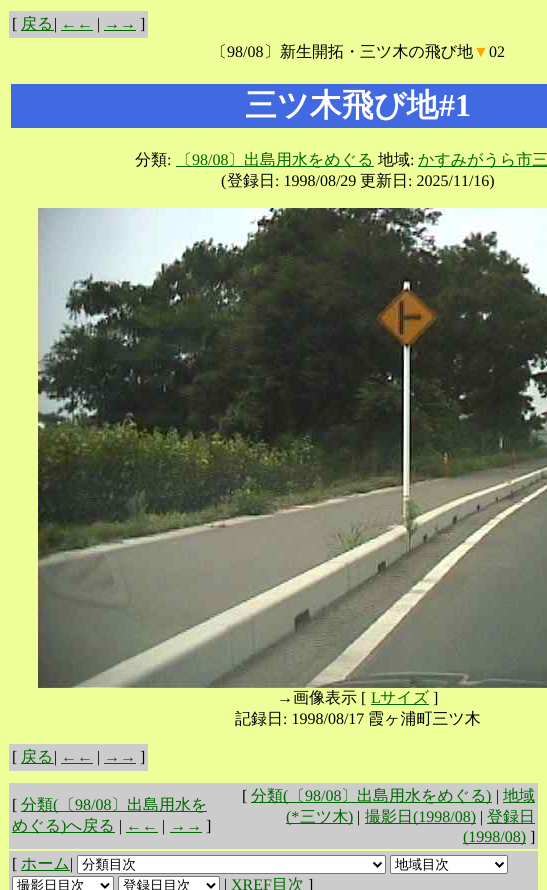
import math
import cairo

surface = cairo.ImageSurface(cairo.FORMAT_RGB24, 547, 890)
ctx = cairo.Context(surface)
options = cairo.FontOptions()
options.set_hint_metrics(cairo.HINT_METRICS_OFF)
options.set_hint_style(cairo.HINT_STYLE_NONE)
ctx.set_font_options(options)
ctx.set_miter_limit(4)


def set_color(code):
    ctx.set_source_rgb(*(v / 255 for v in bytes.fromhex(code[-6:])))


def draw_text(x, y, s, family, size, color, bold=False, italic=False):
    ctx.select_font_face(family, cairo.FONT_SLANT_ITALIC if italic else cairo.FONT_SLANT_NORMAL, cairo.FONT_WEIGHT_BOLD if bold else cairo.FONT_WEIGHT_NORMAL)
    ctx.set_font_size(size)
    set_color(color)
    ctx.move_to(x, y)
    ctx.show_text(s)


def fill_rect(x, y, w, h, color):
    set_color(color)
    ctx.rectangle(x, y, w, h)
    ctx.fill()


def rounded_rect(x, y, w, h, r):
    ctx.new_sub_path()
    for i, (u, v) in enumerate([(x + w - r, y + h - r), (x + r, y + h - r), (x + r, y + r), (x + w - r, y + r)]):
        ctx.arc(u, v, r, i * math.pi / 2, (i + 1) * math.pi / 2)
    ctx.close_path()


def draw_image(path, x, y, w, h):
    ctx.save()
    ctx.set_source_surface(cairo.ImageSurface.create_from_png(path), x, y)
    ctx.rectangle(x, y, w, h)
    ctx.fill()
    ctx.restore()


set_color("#eeff99")
ctx.paint()
fill_rect(9, 11, 139, 27, "#cccccc")
draw_text(12, 29, "[", "Liberation Serif", 16, "#000000")
fill_rect(21, 30, 33, 1, "#006600")
draw_text(21, 29, "戻る", "WenQuanYi Zen Hei Medium", 16, "#006600")
draw_text(54, 29, "|", "Liberation Serif", 16, "#000000")
draw_text(61, 29, "←←", "Liberation Serif", 16, "#006600")
fill_rect(61, 30, 32, 1, "#006600")
draw_text(97, 29, "|", "Liberation Serif", 16, "#000000")
draw_text(104, 29, "→→", "Liberation Serif", 16, "#006600")
fill_rect(104, 30, 32, 1, "#006600")
draw_text(140, 29, "]", "Liberation Serif", 16, "#000000")
draw_text(211, 57, "〔", "WenQuanYi Zen Hei Medium", 16, "#000000")
draw_text(227, 57, "98/08", "Liberation Serif", 16, "#000000")
draw_text(264, 57, "〕新生開拓・三ツ木の飛び地", "WenQuanYi Zen Hei Medium", 16, "#000000")
draw_text(473, 57, "▼", "Liberation Serif", 16, "#ffa500")
draw_text(489, 57, "02", "Liberation Serif", 16, "#000000")
fill_rect(11, 84, 536, 44, "#4169e1")
draw_text(245, 116, "三ツ木飛び地", "WenQuanYi Zen Hei", 32, "#ffffff", bold=True)
draw_text(439, 116, "#1", "Liberation Serif", 32, "#ffffff", bold=True)
draw_text(135, 165, "分類", "WenQuanYi Zen Hei Medium", 16, "#000000")
draw_text(167, 165, ":", "Liberation Serif", 16, "#000000")
fill_rect(176, 166, 198, 1, "#006600")
draw_text(176, 165, "〔", "WenQuanYi Zen Hei Medium", 16, "#006600")
draw_text(192, 165, "98/08", "Liberation Serif", 16, "#006600")
draw_text(228, 165, "〕出島用水をめぐる", "WenQuanYi Zen Hei Medium", 16, "#006600")
draw_text(378, 165, "地域", "WenQuanYi Zen Hei Medium", 16, "#000000")
draw_text(410, 165, ":", "Liberation Serif", 16, "#000000")
fill_rect(418, 166, 129, 1, "#006600")
draw_text(418, 165, "かすみがうら市三", "WenQuanYi Zen Hei Medium", 16, "#006600")
draw_text(221, 186, "(", "Liberation Serif", 16, "#000000")
draw_text(227, 186, "登録日", "WenQuanYi Zen Hei Medium", 16, "#000000")
draw_text(275, 186, ": 1998/08/29", "Liberation Serif", 16, "#000000")
draw_text(360, 186, "更新日", "WenQuanYi Zen Hei Medium", 16, "#000000")
draw_text(408, 186, ": 2025/11/16)", "Liberation Serif", 16, "#000000")
draw_image("assets/img1.png", 38, 208, 509, 480)
draw_text(277, 703, "→", "Liberation Serif", 16, "#000000")
draw_text(293, 703, "画像表示", "WenQuanYi Zen Hei Medium", 16, "#000000")
draw_text(361, 703, "[", "Liberation Serif", 16, "#000000")
draw_text(371, 703, "L", "Liberation Serif", 16, "#006600")
fill_rect(371, 704, 58, 1, "#006600")
draw_text(380, 703, "サイズ", "WenQuanYi Zen Hei Medium", 16, "#006600")
draw_text(433, 703, "]", "Liberation Serif", 16, "#000000")
draw_text(235, 724, "記録日", "WenQuanYi Zen Hei Medium", 16, "#000000")
draw_text(283, 724, ": 1998/08/17", "Liberation Serif", 16, "#000000")
draw_text(368, 724, "霞ヶ浦町三ツ木", "WenQuanYi Zen Hei Medium", 16, "#000000")
fill_rect(9, 744, 139, 27, "#cccccc")
draw_text(12, 762, "[", "Liberation Serif", 16, "#000000")
fill_rect(21, 763, 33, 1, "#006600")
draw_text(21, 762, "戻る", "WenQuanYi Zen Hei Medium", 16, "#006600")
draw_text(54, 762, "|", "Liberation Serif", 16, "#000000")
draw_text(61, 762, "←←", "Liberation Serif", 16, "#006600")
fill_rect(61, 763, 32, 1, "#006600")
draw_text(97, 762, "|", "Liberation Serif", 16, "#000000")
draw_text(104, 762, "→→", "Liberation Serif", 16, "#006600")
fill_rect(104, 763, 32, 1, "#006600")
draw_text(140, 762, "]", "Liberation Serif", 16, "#000000")
fill_rect(9, 783, 529, 66, "#cccccc")
draw_text(12, 810, "[", "Liberation Serif", 16, "#000000")
fill_rect(21, 811, 186, 1, "#006600")
draw_text(21, 810, "分類", "WenQuanYi Zen Hei Medium", 16, "#006600")
draw_text(53, 810, "(", "Liberation Serif", 16, "#006600")
draw_text(59, 810, "〔", "WenQuanYi Zen Hei Medium", 16, "#006600")
draw_text(75, 810, "98/08", "Liberation Serif", 16, "#006600")
draw_text(111, 810, "〕出島用水を", "WenQuanYi Zen Hei Medium", 16, "#006600")
fill_rect(12, 832, 103, 1, "#006600")
draw_text(12, 831, "めぐる", "WenQuanYi Zen Hei Medium", 16, "#006600")
draw_text(61, 831, ")", "Liberation Serif", 16, "#006600")
draw_text(66, 831, "へ戻る", "WenQuanYi Zen Hei Medium", 16, "#006600")
draw_text(119, 831, "|", "Liberation Serif", 16, "#000000")
draw_text(126, 831, "←←", "Liberation Serif", 16, "#006600")
fill_rect(126, 832, 32, 1, "#006600")
draw_text(162, 831, "|", "Liberation Serif", 16, "#000000")
draw_text(170, 831, "→→", "Liberation Serif", 16, "#006600")
fill_rect(170, 832, 32, 1, "#006600")
draw_text(206, 831, "]", "Liberation Serif", 16, "#000000")
draw_text(242, 801, "[", "Liberation Serif", 16, "#000000")
fill_rect(251, 802, 241, 1, "#006600")
draw_text(251, 801, "分類", "WenQuanYi Zen Hei Medium", 16, "#006600")
draw_text(283, 801, "(", "Liberation Serif", 16, "#006600")
draw_text(289, 801, "〔", "WenQuanYi Zen Hei Medium", 16, "#006600")
draw_text(305, 801, "98/08", "Liberation Serif", 16, "#006600")
draw_text(341, 801, "〕出島用水をめぐる", "WenQuanYi Zen Hei Medium", 16, "#006600")
draw_text(486, 801, ")", "Liberation Serif", 16, "#006600")
draw_text(496, 801, "|", "Liberation Serif", 16, "#000000")
fill_rect(503, 802, 32, 1, "#006600")
draw_text(503, 801, "地域", "WenQuanYi Zen Hei Medium", 16, "#006600")
fill_rect(286, 823, 67, 1, "#006600")
draw_text(286, 822, "(*", "Liberation Serif", 16, "#006600")
draw_text(300, 822, "三ツ木", "WenQuanYi Zen Hei Medium", 16, "#006600")
draw_text(348, 822, ")", "Liberation Serif", 16, "#006600")
draw_text(357, 822, "|", "Liberation Serif", 16, "#000000")
fill_rect(365, 823, 111, 1, "#006600")
draw_text(365, 822, "撮影日", "WenQuanYi Zen Hei Medium", 16, "#006600")
draw_text(413, 822, "(1998/08)", "Liberation Serif", 16, "#006600")
draw_text(480, 822, "|", "Liberation Serif", 16, "#000000")
fill_rect(487, 823, 48, 1, "#006600")
draw_text(487, 822, "登録日", "WenQuanYi Zen Hei Medium", 16, "#006600")
fill_rect(463, 843, 63, 1, "#006600")
draw_text(463, 842, "(1998/08)", "Liberation Serif", 16, "#006600")
draw_text(530, 842, "]", "Liberation Serif", 16, "#000000")
fill_rect(9, 851, 529, 39, "#cccccc")
draw_text(12, 869, "[", "Liberation Serif", 16, "#000000")
fill_rect(21, 870, 49, 1, "#006600")
draw_text(21, 869, "ホーム", "WenQuanYi Zen Hei Medium", 16, "#006600")
draw_text(70, 869, "|", "Liberation Serif", 16, "#000000")
set_color("#ffffff")
rounded_rect(77.5, 855.5, 308, 18, 1.5)
ctx.fill_preserve()
set_color("#767676")
ctx.set_line_width(1)
ctx.stroke()
ctx.new_path()
ctx.move_to(373.5, 862.5)
ctx.line_to(377.5, 866.5)
ctx.line_to(381.5, 862.5)
set_color("#000000")
ctx.set_line_width(2)
ctx.stroke()
draw_text(82, 869, "分類目次", "WenQuanYi Zen Hei Medium", 13.5, "#000000")
set_color("#ffffff")
rounded_rect(390.5, 855.5, 117, 18, 1.5)
ctx.fill_preserve()
set_color("#767676")
ctx.set_line_width(1)
ctx.stroke()
ctx.new_path()
ctx.move_to(495.5, 862.5)
ctx.line_to(499.5, 866.5)
ctx.line_to(503.5, 862.5)
set_color("#000000")
ctx.set_line_width(2)
ctx.stroke()
draw_text(395, 869, "地域目次", "WenQuanYi Zen Hei Medium", 13.5, "#000000")
set_color("#ffffff")
rounded_rect(12.5, 876.5, 101, 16, 1.5)
ctx.fill_preserve()
set_color("#767676")
ctx.set_line_width(1)
ctx.stroke()
ctx.new_path()
ctx.move_to(101, 883.5)
ctx.line_to(105, 887.5)
ctx.line_to(109, 883.5)
set_color("#000000")
ctx.set_line_width(2)
ctx.stroke()
draw_text(17, 890, "撮影日目次", "WenQuanYi Zen Hei Medium", 13.5, "#000000")
set_color("#ffffff")
rounded_rect(118.5, 876.5, 101, 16, 1.5)
ctx.fill_preserve()
set_color("#767676")
ctx.set_line_width(1)
ctx.stroke()
ctx.new_path()
ctx.move_to(207, 883.5)
ctx.line_to(211, 887.5)
ctx.line_to(215, 883.5)
set_color("#000000")
ctx.set_line_width(2)
ctx.stroke()
draw_text(123, 890, "登録日目次", "WenQuanYi Zen Hei Medium", 13.5, "#000000")
draw_text(224, 890, "|", "Liberation Serif", 16, "#000000")
draw_text(231, 890, "XREF", "Liberation Serif", 16, "#006600")
draw_text(272, 890, "目次", "WenQuanYi Zen Hei Medium", 16, "#006600")
draw_text(308, 890, "]", "Liberation Serif", 16, "#000000")
surface.write_to_png("output.png")
